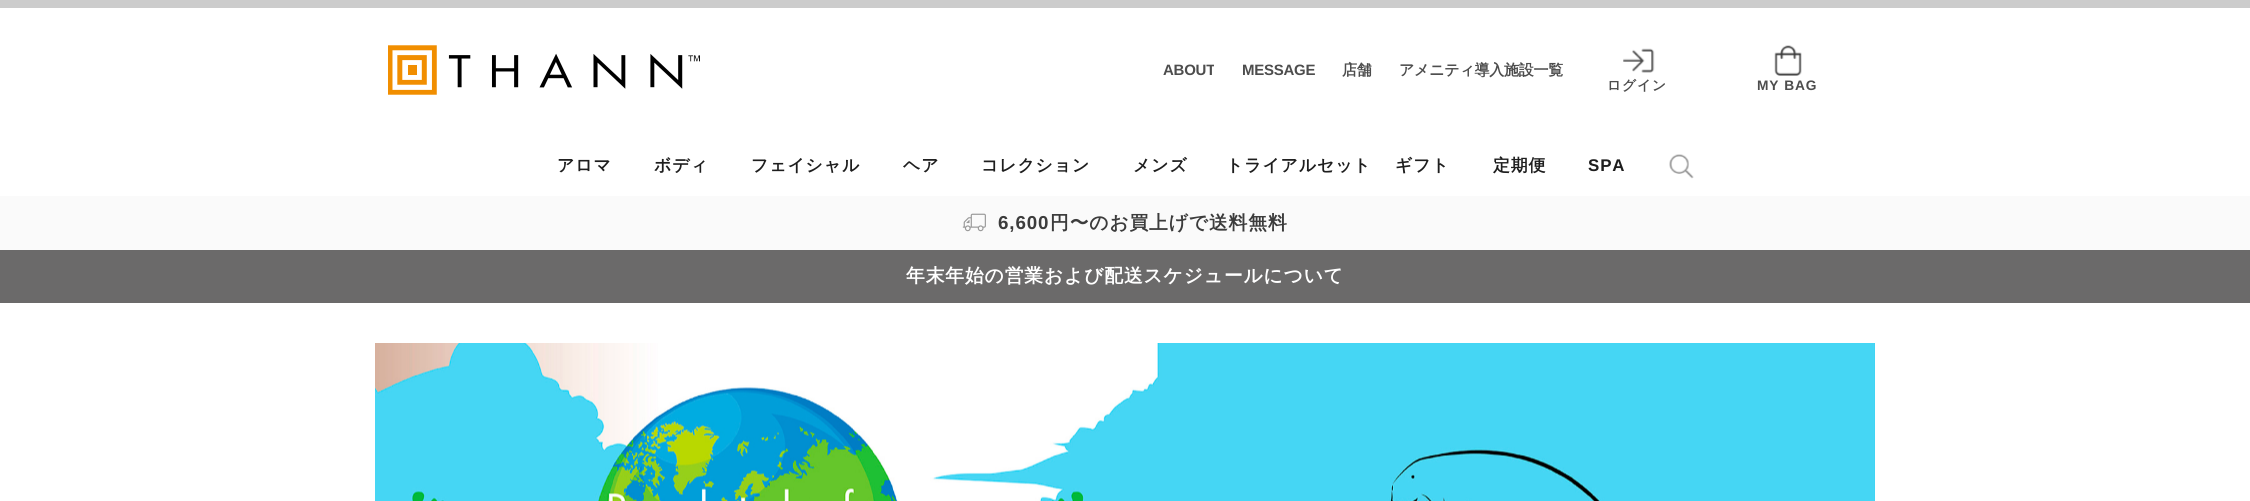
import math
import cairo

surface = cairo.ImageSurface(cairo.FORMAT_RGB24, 2250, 501)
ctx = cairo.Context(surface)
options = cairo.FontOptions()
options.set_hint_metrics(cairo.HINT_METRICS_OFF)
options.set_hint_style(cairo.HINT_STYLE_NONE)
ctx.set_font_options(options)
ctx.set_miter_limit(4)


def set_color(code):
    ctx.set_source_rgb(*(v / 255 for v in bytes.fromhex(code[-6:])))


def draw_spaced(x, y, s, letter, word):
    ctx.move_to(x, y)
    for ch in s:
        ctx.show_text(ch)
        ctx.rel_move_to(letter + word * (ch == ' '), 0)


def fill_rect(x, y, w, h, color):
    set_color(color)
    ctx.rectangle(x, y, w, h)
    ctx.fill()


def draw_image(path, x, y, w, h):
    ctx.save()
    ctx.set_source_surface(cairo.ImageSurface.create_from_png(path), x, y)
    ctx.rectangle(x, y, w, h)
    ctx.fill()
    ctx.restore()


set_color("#ffffff")
ctx.paint()
fill_rect(0, 0, 2250, 8, "#cccccc")
draw_image("assets/img1.png", 388, 45, 312, 50)
ctx.save()
ctx.rectangle(1163, 40, 51, 60)
ctx.clip()
ctx.select_font_face("Liberation Sans", cairo.FONT_SLANT_NORMAL, cairo.FONT_WEIGHT_BOLD)
ctx.set_font_size(15)
set_color("#4d4d4d")
draw_spaced(1163, 75, "ABOUT", -0.25, 0)
ctx.restore()
ctx.select_font_face("Liberation Sans", cairo.FONT_SLANT_NORMAL, cairo.FONT_WEIGHT_BOLD)
ctx.set_font_size(15)
set_color("#4d4d4d")
draw_spaced(1242, 75, "MESSAGE", -0.25, 0)
ctx.select_font_face("WenQuanYi Zen Hei", cairo.FONT_SLANT_NORMAL, cairo.FONT_WEIGHT_BOLD)
draw_spaced(1342, 75, "店舗", -0.25, 0)
draw_spaced(1399, 75, "アメニティ導入施設一覧", -0.25, 0)
draw_image("assets/img2.png", 1623, 48, 32, 25)
ctx.set_font_size(13.75)
draw_spaced(1607, 90, "ログイン", 0.9, 0)
draw_image("assets/img3.png", 1774, 45, 28, 31)
ctx.select_font_face("Liberation Sans", cairo.FONT_SLANT_NORMAL, cairo.FONT_WEIGHT_BOLD)
draw_spaced(1757, 90, "MY BAG", 0.9, 0)
ctx.select_font_face("WenQuanYi Zen Hei", cairo.FONT_SLANT_NORMAL, cairo.FONT_WEIGHT_BOLD)
ctx.set_font_size(16.9)
set_color("#1e1e1e")
draw_spaced(557, 171, "アロマ", 0.9, 0)
draw_spaced(654, 171, "ボディ", 0.9, 0)
draw_spaced(751, 171, "フェイシャル", 0.9, 0)
draw_spaced(903, 171, "ヘア", 0.9, 0)
draw_spaced(981, 171, "コレクション", 0.9, 0)
draw_spaced(1133, 171, "メンズ", 0.9, 0)
draw_spaced(1226, 171, "トライアルセット", 0.9, 0)
draw_spaced(1395, 171, "ギフト", 0.9, 0)
draw_spaced(1493, 171, "定期便", 0.9, 0)
ctx.select_font_face("Liberation Sans", cairo.FONT_SLANT_NORMAL, cairo.FONT_WEIGHT_BOLD)
draw_spaced(1588, 171, "SPA", 0.9, 0)
draw_image("assets/img4.png", 1669, 154, 25, 25)
fill_rect(0, 196, 2250, 54, "#fafafa")
draw_image("assets/img5.png", 962, 213, 24, 19)
ctx.set_font_size(18.75)
set_color("#3c3c3c")
draw_spaced(998, 229, "6,600", 0.9, 0)
ctx.select_font_face("WenQuanYi Zen Hei", cairo.FONT_SLANT_NORMAL, cairo.FONT_WEIGHT_BOLD)
draw_spaced(1050, 229, "円〜のお買上げで送料無料", 0.9, 0)
fill_rect(0, 250, 2250, 53, "#6b6a6a")
set_color("#ffffff")
draw_spaced(906, 282, "年末年始の営業および配送スケジュールについて", 0.9, 0)
draw_image("assets/img6.png", 375, 343, 1500, 158)
surface.write_to_png("output.png")
